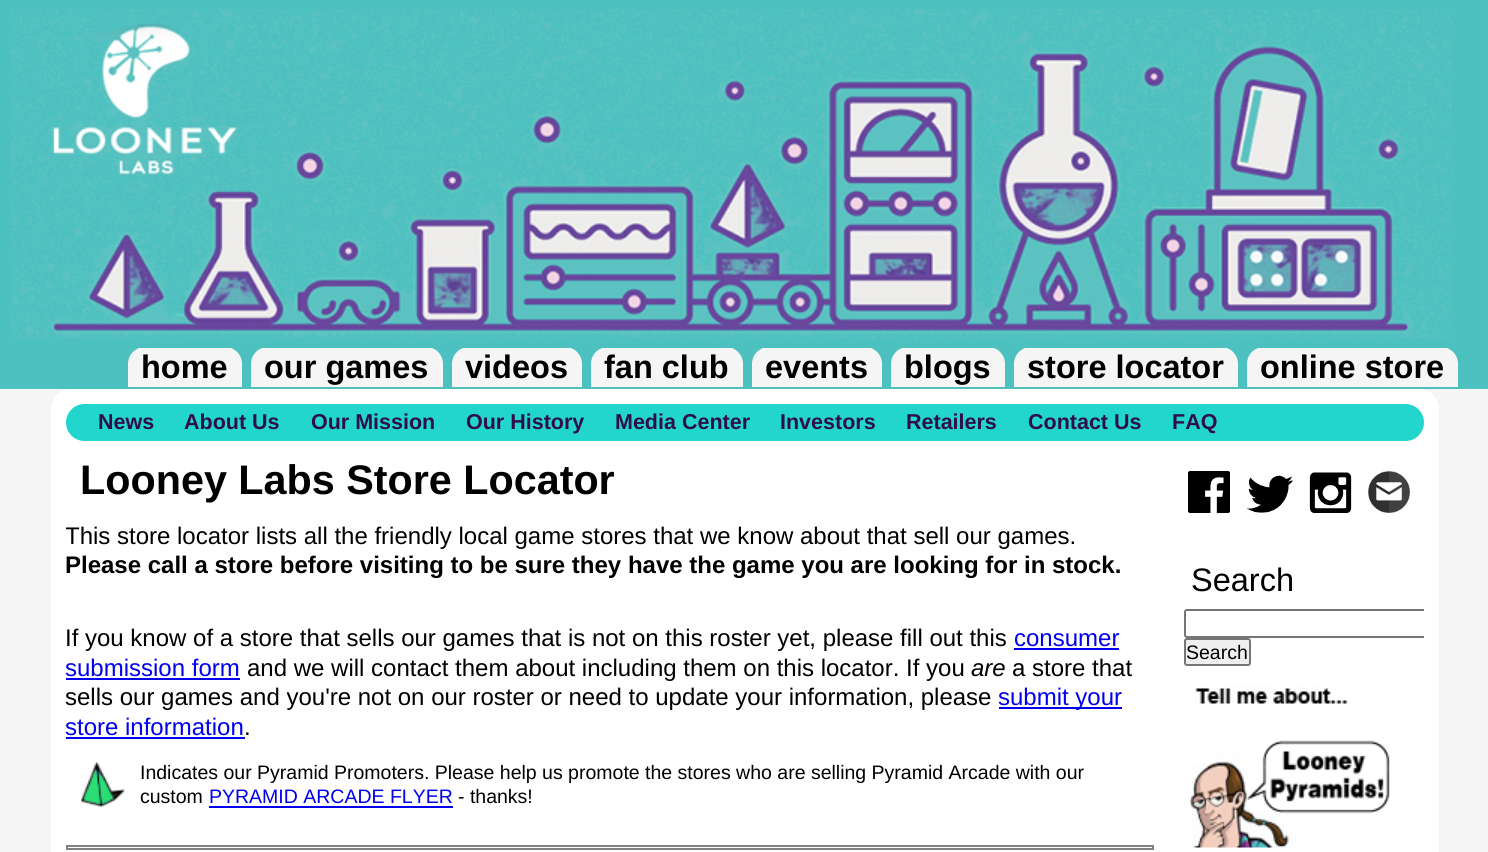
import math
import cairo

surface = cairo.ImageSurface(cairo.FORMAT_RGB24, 1488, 852)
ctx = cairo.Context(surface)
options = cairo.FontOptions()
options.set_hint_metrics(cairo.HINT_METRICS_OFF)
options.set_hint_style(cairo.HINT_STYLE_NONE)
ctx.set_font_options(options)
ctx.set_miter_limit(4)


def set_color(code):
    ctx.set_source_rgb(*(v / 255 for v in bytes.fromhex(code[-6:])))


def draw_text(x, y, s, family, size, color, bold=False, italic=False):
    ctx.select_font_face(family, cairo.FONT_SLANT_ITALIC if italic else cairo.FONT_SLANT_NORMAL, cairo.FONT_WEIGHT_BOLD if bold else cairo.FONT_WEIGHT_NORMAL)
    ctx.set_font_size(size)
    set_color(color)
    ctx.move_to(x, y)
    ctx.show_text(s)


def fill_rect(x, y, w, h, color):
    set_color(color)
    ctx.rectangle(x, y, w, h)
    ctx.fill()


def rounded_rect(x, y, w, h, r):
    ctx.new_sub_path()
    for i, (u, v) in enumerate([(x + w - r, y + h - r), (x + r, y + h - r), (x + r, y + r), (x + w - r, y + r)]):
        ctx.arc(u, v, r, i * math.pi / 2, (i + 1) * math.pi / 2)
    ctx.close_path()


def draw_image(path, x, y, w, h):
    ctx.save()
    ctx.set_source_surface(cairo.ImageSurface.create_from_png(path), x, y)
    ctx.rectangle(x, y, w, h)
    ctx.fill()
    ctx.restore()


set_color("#f5f5f5")
ctx.paint()
fill_rect(0, 0, 1488, 389, "#4dc1c0")
draw_image("assets/img1.png", 10, 9, 1442, 330)
ctx.save()
ctx.rectangle(0, 348, 1488, 41)
ctx.clip()
set_color("#f5f5f5")
ctx.new_path()
ctx.move_to(145, 347)
ctx.line_to(225, 347)
ctx.curve_to(234.5, 347, 242, 354.5, 242, 364)
ctx.line_to(242, 387)
ctx.line_to(128, 387)
ctx.line_to(128, 364)
ctx.curve_to(128, 354.5, 135.5, 347, 145, 347)
ctx.close_path()
ctx.fill()
ctx.restore()
draw_text(141, 378, "home", "Liberation Sans", 32.5, "#000000", bold=True)
ctx.save()
ctx.rectangle(0, 348, 1488, 41)
ctx.clip()
set_color("#f5f5f5")
ctx.new_path()
ctx.move_to(268, 347)
ctx.line_to(426, 347)
ctx.curve_to(435.5, 347, 443, 354.5, 443, 364)
ctx.line_to(443, 387)
ctx.line_to(251, 387)
ctx.line_to(251, 364)
ctx.curve_to(251, 354.5, 258.5, 347, 268, 347)
ctx.close_path()
ctx.fill()
ctx.restore()
draw_text(264, 378, "our games", "Liberation Sans", 32.5, "#000000", bold=True)
ctx.save()
ctx.rectangle(0, 348, 1488, 41)
ctx.clip()
set_color("#f5f5f5")
ctx.new_path()
ctx.move_to(469, 347)
ctx.line_to(565, 347)
ctx.curve_to(574.5, 347, 582, 354.5, 582, 364)
ctx.line_to(582, 387)
ctx.line_to(452, 387)
ctx.line_to(452, 364)
ctx.curve_to(452, 354.5, 459.5, 347, 469, 347)
ctx.close_path()
ctx.fill()
ctx.restore()
draw_text(465, 378, "videos", "Liberation Sans", 32.5, "#000000", bold=True)
ctx.save()
ctx.rectangle(0, 348, 1488, 41)
ctx.clip()
set_color("#f5f5f5")
ctx.new_path()
ctx.move_to(608, 347)
ctx.line_to(726, 347)
ctx.curve_to(735.5, 347, 743, 354.5, 743, 364)
ctx.line_to(743, 387)
ctx.line_to(591, 387)
ctx.line_to(591, 364)
ctx.curve_to(591, 354.5, 598.5, 347, 608, 347)
ctx.close_path()
ctx.fill()
ctx.restore()
draw_text(604, 378, "fan club", "Liberation Sans", 32.5, "#000000", bold=True)
ctx.save()
ctx.rectangle(0, 348, 1488, 41)
ctx.clip()
set_color("#f5f5f5")
ctx.new_path()
ctx.move_to(769, 347)
ctx.line_to(865, 347)
ctx.curve_to(874.5, 347, 882, 354.5, 882, 364)
ctx.line_to(882, 387)
ctx.line_to(752, 387)
ctx.line_to(752, 364)
ctx.curve_to(752, 354.5, 759.5, 347, 769, 347)
ctx.close_path()
ctx.fill()
ctx.restore()
draw_text(765, 378, "events", "Liberation Sans", 32.5, "#000000", bold=True)
ctx.save()
ctx.rectangle(0, 348, 1488, 41)
ctx.clip()
set_color("#f5f5f5")
ctx.new_path()
ctx.move_to(908, 347)
ctx.line_to(988, 347)
ctx.curve_to(997.5, 347, 1005, 354.5, 1005, 364)
ctx.line_to(1005, 387)
ctx.line_to(891, 387)
ctx.line_to(891, 364)
ctx.curve_to(891, 354.5, 898.5, 347, 908, 347)
ctx.close_path()
ctx.fill()
ctx.restore()
draw_text(904, 378, "blogs", "Liberation Sans", 32.5, "#000000", bold=True)
ctx.save()
ctx.rectangle(0, 348, 1488, 41)
ctx.clip()
set_color("#f5f5f5")
ctx.new_path()
ctx.move_to(1031, 347)
ctx.line_to(1221, 347)
ctx.curve_to(1230.5, 347, 1238, 354.5, 1238, 364)
ctx.line_to(1238, 387)
ctx.line_to(1014, 387)
ctx.line_to(1014, 364)
ctx.curve_to(1014, 354.5, 1021.5, 347, 1031, 347)
ctx.close_path()
ctx.fill()
ctx.restore()
draw_text(1027, 378, "store locator", "Liberation Sans", 32.5, "#000000", bold=True)
ctx.save()
ctx.rectangle(0, 348, 1488, 41)
ctx.clip()
set_color("#f5f5f5")
ctx.new_path()
ctx.move_to(1264, 347)
ctx.line_to(1441, 347)
ctx.curve_to(1450.5, 347, 1458, 354.5, 1458, 364)
ctx.line_to(1458, 387)
ctx.line_to(1247, 387)
ctx.line_to(1247, 364)
ctx.curve_to(1247, 354.5, 1254.5, 347, 1264, 347)
ctx.close_path()
ctx.fill()
ctx.restore()
draw_text(1260, 378, "online store", "Liberation Sans", 32.5, "#000000", bold=True)
set_color("#ffffff")
rounded_rect(51, 389, 1388, 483, 20)
ctx.fill()
set_color("#22d6ce")
rounded_rect(66, 404, 1358, 37, 18.5)
ctx.fill()
draw_text(98, 429, "News", "Liberation Sans", 21.5, "#2f0f47", bold=True)
draw_text(184, 429, "About Us", "Liberation Sans", 21.5, "#2f0f47", bold=True)
draw_text(311, 429, "Our Mission", "Liberation Sans", 21.5, "#2f0f47", bold=True)
draw_text(466, 429, "Our History", "Liberation Sans", 21.5, "#2f0f47", bold=True)
draw_text(615, 429, "Media Center", "Liberation Sans", 21.5, "#2f0f47", bold=True)
draw_text(780, 429, "Investors", "Liberation Sans", 21.5, "#2f0f47", bold=True)
draw_text(906, 429, "Retailers", "Liberation Sans", 21.5, "#2f0f47", bold=True)
draw_text(1028, 429, "Contact Us", "Liberation Sans", 21.5, "#2f0f47", bold=True)
draw_text(1172, 429, "FAQ", "Liberation Sans", 21.5, "#2f0f47", bold=True)
draw_text(80, 494, "Looney Labs Store Locator", "Liberation Sans", 41.3, "#000000", bold=True)
ctx.save()
ctx.rectangle(66, 522, 1088, 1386)
ctx.clip()
draw_text(65, 544, "This store locator lists all the friendly local game stores that we know about that sell our games.", "Liberation Sans", 24, "#000000")
ctx.restore()
draw_text(65, 573, "Please call a store before visiting to be sure they have the game you are looking for in stock.", "Liberation Sans", 24, "#000000", bold=True)
draw_text(65, 646, "If you know of a store that sells our games that is not on this roster yet, please fill out this", "Liberation Sans", 24, "#000000")
draw_text(1014, 646, "consumer", "Liberation Sans", 24, "#0000ee")
fill_rect(1014, 648, 105, 2, "#0000ee")
draw_text(65, 676, "submission form", "Liberation Sans", 24, "#0000ee")
fill_rect(66, 678, 174, 2, "#0000ee")
draw_text(247, 676, "and we will contact them about including them on this locator. If you", "Liberation Sans", 24, "#000000")
draw_text(971, 676, "are", "Liberation Sans", 24, "#000000", italic=True)
draw_text(1012, 676, "a store that", "Liberation Sans", 24, "#000000")
draw_text(65, 705, "sells our games and you're not on our roster or need to update your information, please", "Liberation Sans", 24, "#000000")
fill_rect(999, 707, 123, 2, "#0000ee")
draw_text(998, 705, "submit your", "Liberation Sans", 24, "#0000ee")
draw_text(65, 735, "store information", "Liberation Sans", 24, "#0000ee")
draw_text(244, 735, ".", "Liberation Sans", 24, "#000000")
fill_rect(66, 737, 179, 2, "#0000ee")
draw_image("assets/img2.png", 81, 762, 44, 45)
draw_text(140, 779, "Indicates our Pyramid Promoters. Please help us promote the stores who are selling Pyramid Arcade with our", "Liberation Sans", 19.5, "#000000")
draw_text(140, 803, "custom", "Liberation Sans", 19.5, "#000000")
draw_text(209, 803, "PYRAMID ARCADE FLYER", "Liberation Sans", 19.5, "#0000ee")
fill_rect(209, 806, 244, 2, "#0000ee")
draw_text(458, 803, "- thanks!", "Liberation Sans", 19.5, "#000000")
ctx.rectangle(67, 846, 1086, 3)
set_color("#808080")
ctx.stroke()
draw_image("assets/img3.png", 1188, 471, 42, 42)
draw_image("assets/img4.png", 1246, 475, 47, 38)
draw_image("assets/img5.png", 1309, 472, 43, 41)
draw_image("assets/img6.png", 1368, 471, 42, 42)
draw_text(1191, 591, "Search", "Liberation Sans", 32.5, "#000000")
ctx.save()
ctx.rectangle(1184, 609, 240, 57)
ctx.clip()
rounded_rect(1185, 610, 242, 27, 2)
set_color("#767676")
ctx.stroke()
ctx.restore()
set_color("#efefef")
rounded_rect(1185, 639, 65, 26, 2)
ctx.fill_preserve()
set_color("#767676")
ctx.stroke()
draw_text(1186, 659, "Search", "Liberation Sans", 19.5, "#000000")
draw_image("assets/img7.png", 1195, 684, 153, 20)
draw_image("assets/img8.png", 1189, 740, 201, 108)
surface.write_to_png("output.png")
